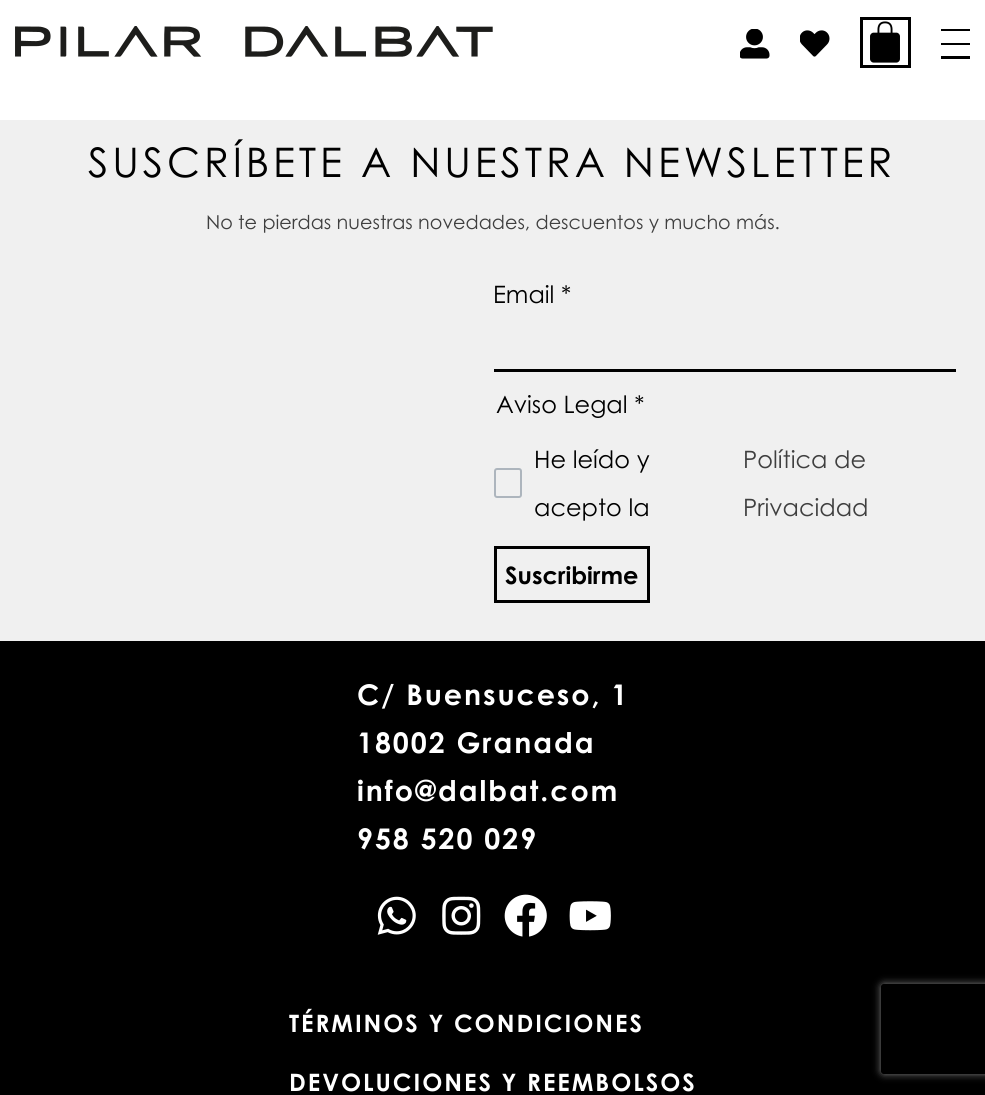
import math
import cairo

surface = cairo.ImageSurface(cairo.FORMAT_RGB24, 985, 1095)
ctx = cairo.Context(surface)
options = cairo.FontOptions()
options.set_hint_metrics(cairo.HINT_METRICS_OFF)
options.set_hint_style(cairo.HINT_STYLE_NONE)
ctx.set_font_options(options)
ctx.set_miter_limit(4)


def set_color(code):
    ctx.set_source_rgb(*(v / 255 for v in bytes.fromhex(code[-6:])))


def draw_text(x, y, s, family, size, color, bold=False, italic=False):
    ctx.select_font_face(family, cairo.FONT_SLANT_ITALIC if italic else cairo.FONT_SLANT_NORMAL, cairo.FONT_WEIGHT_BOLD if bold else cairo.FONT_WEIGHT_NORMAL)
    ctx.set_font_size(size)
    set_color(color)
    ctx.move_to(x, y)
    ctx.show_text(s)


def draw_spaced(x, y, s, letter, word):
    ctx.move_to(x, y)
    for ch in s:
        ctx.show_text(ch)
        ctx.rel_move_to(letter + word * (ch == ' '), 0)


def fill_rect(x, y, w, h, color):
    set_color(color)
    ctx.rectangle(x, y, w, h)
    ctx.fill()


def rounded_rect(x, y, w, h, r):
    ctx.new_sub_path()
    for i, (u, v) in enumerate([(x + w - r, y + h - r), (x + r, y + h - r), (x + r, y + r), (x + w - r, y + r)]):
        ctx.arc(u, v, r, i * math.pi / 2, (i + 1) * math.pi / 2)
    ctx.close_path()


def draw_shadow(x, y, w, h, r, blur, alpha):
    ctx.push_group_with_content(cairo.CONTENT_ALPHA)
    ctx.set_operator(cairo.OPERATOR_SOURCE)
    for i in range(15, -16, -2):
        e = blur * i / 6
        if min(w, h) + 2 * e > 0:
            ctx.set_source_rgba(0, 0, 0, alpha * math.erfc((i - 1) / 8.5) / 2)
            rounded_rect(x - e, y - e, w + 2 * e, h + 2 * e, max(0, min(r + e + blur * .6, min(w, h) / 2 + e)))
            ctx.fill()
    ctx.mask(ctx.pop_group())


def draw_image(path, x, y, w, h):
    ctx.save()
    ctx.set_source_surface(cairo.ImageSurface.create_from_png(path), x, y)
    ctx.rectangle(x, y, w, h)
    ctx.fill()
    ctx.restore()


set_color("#ffffff")
ctx.paint()
draw_image("assets/img1.png", 15, 26, 478, 31)
draw_image("assets/img2.png", 740, 29, 30, 30)
draw_image("assets/img3.png", 800, 30, 30, 27)
ctx.rectangle(861.5, 18.5, 48, 48)
set_color("#000000")
ctx.set_line_width(3)
ctx.stroke()
draw_image("assets/img4.png", 870, 21, 30, 42)
fill_rect(941, 56, 29, 3, "#000000")
fill_rect(941, 43, 29, 2, "#000000")
fill_rect(941, 29, 29, 2, "#000000")
fill_rect(0, 120, 985, 521, "#f0f0f0")
ctx.select_font_face("Century Gothic")
ctx.set_font_size(40.75)
set_color("#000000")
draw_spaced(88, 177, "SUSCRÍBETE A NUESTRA NEWSLETTER", 3.9, 0)
draw_text(206, 229, "No te pierdas nuestras novedades, descuentos y mucho más.", "Century Gothic", 19.2, "#3f3f3f")
draw_text(493, 303, "Email *", "Century Gothic", 24, "#000000")
fill_rect(494, 369, 462, 3, "#000000")
draw_text(496, 413, "Aviso Legal *", "Century Gothic", 24, "#000000")
rounded_rect(495, 469, 26, 28, 2)
set_color("#adb5bd")
ctx.set_line_width(2)
ctx.stroke()
draw_text(534, 468, "He leído y", "Century Gothic", 24, "#000000")
draw_text(743, 468, "Política de", "Century Gothic", 24, "#3f3f3f")
draw_text(743, 516, "Privacidad", "Century Gothic", 24, "#3f3f3f")
draw_text(534, 516, "acepto la", "Century Gothic", 24, "#000000")
ctx.rectangle(495.5, 547.5, 153, 54)
ctx.set_line_width(3)
ctx.stroke()
draw_text(505, 584, "Suscribirme", "Century Gothic", 24, "#000000", bold=True)
fill_rect(0, 641, 985, 454, "#000000")
ctx.set_font_size(28.5)
set_color("#ffffff")
draw_spaced(357, 705, "C/ Buensuceso, 1", 1.95, 0)
draw_spaced(357, 753, "18002 Granada", 1.95, 0)
draw_spaced(357, 801, "info@dalbat.com", 1.95, 0)
draw_spaced(357, 849, "958 520 029", 1.95, 0)
draw_image("assets/img5.png", 377, 896, 39, 39)
draw_image("assets/img6.png", 442, 896, 39, 39)
draw_image("assets/img7.png", 504, 894, 43, 43)
draw_image("assets/img8.png", 569, 901, 42, 30)
ctx.set_font_size(24)
draw_spaced(289, 1032, "TÉRMINOS Y CONDICIONES", 1.95, 0)
draw_spaced(289, 1091, "DEVOLUCIONES Y REEMBOLSOS", 1.95, 0)
ctx.save()
ctx.set_fill_rule(cairo.FILL_RULE_EVEN_ODD)
ctx.new_path()
ctx.move_to(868, 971)
ctx.line_to(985, 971)
ctx.line_to(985, 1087)
ctx.line_to(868, 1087)
ctx.close_path()
ctx.move_to(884, 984)
ctx.line_to(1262, 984)
ctx.curve_to(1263.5, 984, 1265, 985.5, 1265, 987)
ctx.line_to(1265, 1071)
ctx.curve_to(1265, 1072.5, 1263.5, 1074, 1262, 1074)
ctx.line_to(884, 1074)
ctx.curve_to(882.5, 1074, 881, 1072.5, 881, 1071)
ctx.line_to(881, 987)
ctx.curve_to(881, 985.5, 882.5, 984, 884, 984)
ctx.close_path()
ctx.clip()
set_color("#808080")
draw_shadow(881, 984, 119, 90, 3, 4, 1)
ctx.restore()
surface.write_to_png("output.png")
